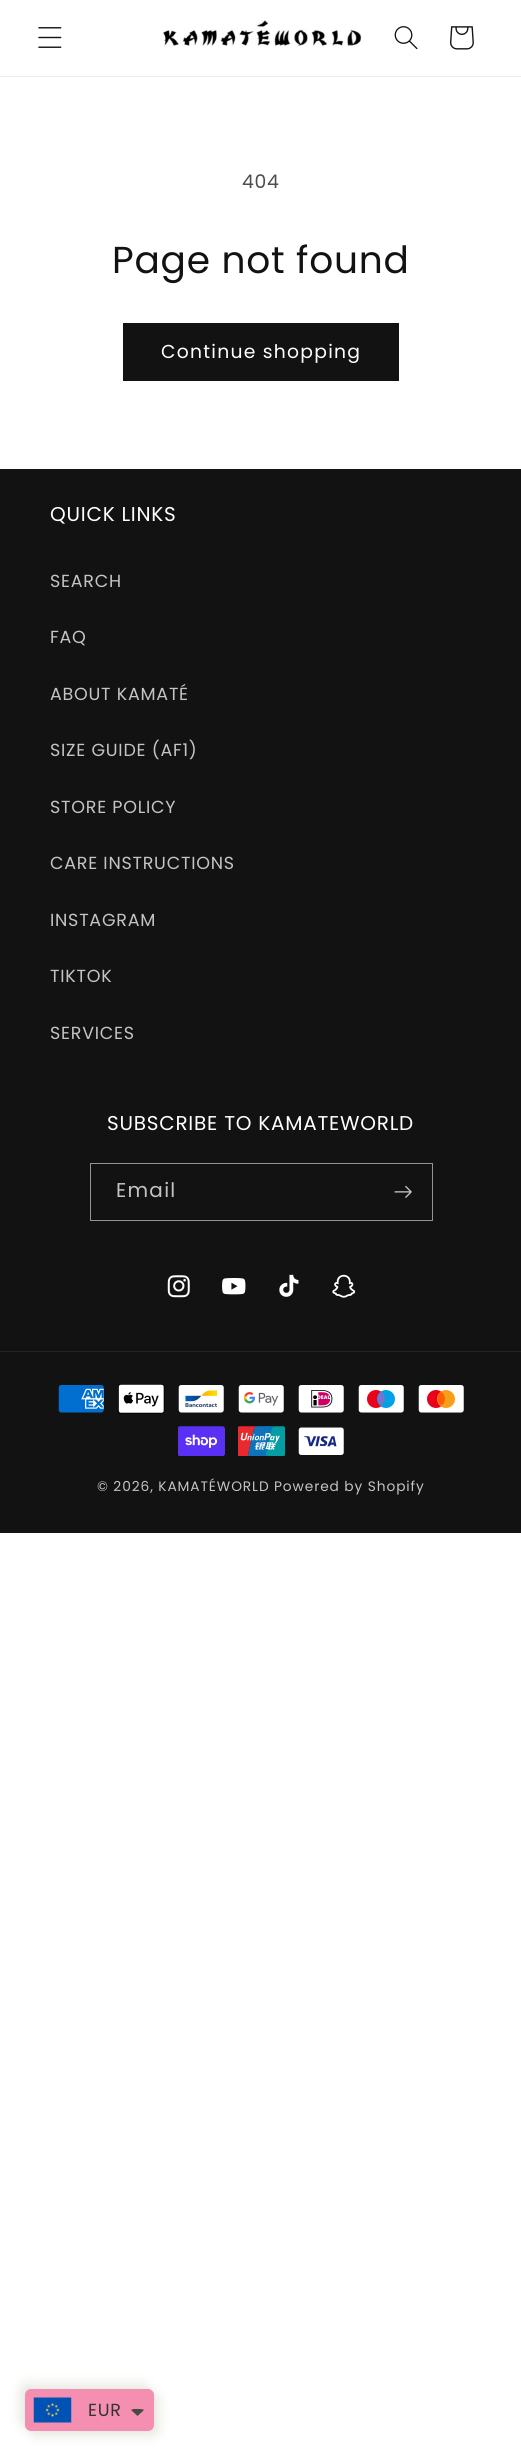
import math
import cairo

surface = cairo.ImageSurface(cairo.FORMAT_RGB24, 521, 2460)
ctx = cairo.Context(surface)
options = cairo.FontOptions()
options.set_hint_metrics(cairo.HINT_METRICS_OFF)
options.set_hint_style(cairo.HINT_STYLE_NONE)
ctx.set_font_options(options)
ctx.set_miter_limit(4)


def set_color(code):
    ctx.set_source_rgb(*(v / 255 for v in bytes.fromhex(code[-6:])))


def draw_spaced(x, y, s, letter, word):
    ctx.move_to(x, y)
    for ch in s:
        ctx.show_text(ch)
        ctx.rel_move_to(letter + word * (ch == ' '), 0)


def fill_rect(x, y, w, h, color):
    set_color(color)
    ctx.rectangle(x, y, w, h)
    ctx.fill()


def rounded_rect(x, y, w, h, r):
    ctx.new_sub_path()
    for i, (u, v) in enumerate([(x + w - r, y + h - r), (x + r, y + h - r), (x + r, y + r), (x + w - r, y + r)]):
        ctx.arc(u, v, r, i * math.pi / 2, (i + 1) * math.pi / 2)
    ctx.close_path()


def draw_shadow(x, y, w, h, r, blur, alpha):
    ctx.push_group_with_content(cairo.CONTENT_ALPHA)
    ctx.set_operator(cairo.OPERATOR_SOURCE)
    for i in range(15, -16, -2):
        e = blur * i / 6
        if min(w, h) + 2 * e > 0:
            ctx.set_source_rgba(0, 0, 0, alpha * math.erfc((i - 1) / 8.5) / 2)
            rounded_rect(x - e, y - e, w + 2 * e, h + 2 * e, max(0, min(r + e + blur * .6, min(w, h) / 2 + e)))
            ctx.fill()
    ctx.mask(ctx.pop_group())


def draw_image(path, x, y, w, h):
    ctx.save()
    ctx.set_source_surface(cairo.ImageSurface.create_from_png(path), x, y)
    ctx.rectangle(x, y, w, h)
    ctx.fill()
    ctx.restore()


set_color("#ffffff")
ctx.paint()
fill_rect(0, 76, 521, 1, "#ececec")
draw_image("assets/img1.png", 38, 27, 24, 21)
draw_image("assets/img2.png", 162, 20, 201, 27)
draw_image("assets/img3.png", 394, 26, 24, 24)
draw_image("assets/img4.png", 450, 26, 24, 24)
ctx.select_font_face("Poppins")
ctx.set_font_size(18.75)
set_color("#4d4d4d")
draw_spaced(242, 188, "404", 0.75, 0)
ctx.set_font_size(37.5)
set_color("#121212")
draw_spaced(112, 273, "Page not found", 0.75, 0)
fill_rect(123, 323, 276, 58, "#121212")
ctx.set_font_size(18.75)
set_color("#ffffff")
draw_spaced(161, 358, "Continue shopping", 1.25, 0)
fill_rect(0, 469, 521, 1064, "#121212")
ctx.set_font_size(20)
set_color("#ffffff")
draw_spaced(50, 521, "QUICK LINKS", 0.75, 0)
ctx.set_font_size(17.5)
set_color("#c4c4c4")
draw_spaced(50, 587, "SEARCH", 0.75, 0)
draw_spaced(50, 643, "FAQ", 0.75, 0)
draw_spaced(50, 700, "ABOUT KAMATÉ", 0.75, 0)
draw_spaced(50, 756, "SIZE GUIDE (AF1)", 0.75, 0)
draw_spaced(50, 813, "STORE POLICY", 0.75, 0)
draw_spaced(50, 869, "CARE INSTRUCTIONS", 0.75, 0)
draw_spaced(50, 926, "INSTAGRAM", 0.75, 0)
draw_spaced(50, 982, "TIKTOK", 0.75, 0)
draw_spaced(50, 1039, "SERVICES", 0.75, 0)
ctx.set_font_size(20)
set_color("#ffffff")
draw_spaced(107, 1130, "SUBSCRIBE TO KAMATEWORLD", 0.75, 0)
ctx.rectangle(90.5, 1163.5, 342, 57)
set_color("#949494")
ctx.set_line_width(1)
ctx.stroke()
set_color("#c4c4c4")
draw_spaced(116, 1197, "Email", 1.25, 0)
draw_image("assets/img5.png", 394, 1185, 18, 13)
draw_image("assets/img6.png", 167, 1275, 23, 23)
draw_image("assets/img7.png", 222, 1278, 24, 17)
draw_image("assets/img8.png", 279, 1274, 20, 23)
draw_image("assets/img9.png", 332, 1274, 24, 24)
fill_rect(0, 1351, 521, 1, "#252525")
draw_image("assets/img10.png", 58, 1385, 46, 28)
draw_image("assets/img11.png", 118, 1384, 47, 30)
draw_image("assets/img12.png", 178, 1385, 46, 28)
draw_image("assets/img13.png", 238, 1385, 46, 28)
draw_image("assets/img14.png", 298, 1385, 46, 28)
draw_image("assets/img15.png", 358, 1385, 46, 28)
draw_image("assets/img16.png", 418, 1385, 46, 28)
draw_image("assets/img17.png", 178, 1426, 47, 30)
draw_image("assets/img18.png", 238, 1426, 47, 30)
draw_image("assets/img19.png", 298, 1427, 46, 28)
ctx.set_font_size(13.75)
set_color("#c4c4c4")
draw_spaced(97, 1491, "© 2026, KAMATÉWORLD", 0.9, 0)
draw_spaced(274, 1491, "Powered by Shopify", 0.9, 0)
set_color("#e8e8e2")
draw_shadow(20, 2384, 129, 42, 6, 5.5, 1)
draw_shadow(30, 2394, 129, 42, 6, 5.5, 1)
set_color("#f48fb1")
rounded_rect(25, 2389, 129, 42, 6)
ctx.fill()
draw_image("assets/img20.png", 33, 2397, 39, 26)
ctx.set_font_size(17.5)
set_color("#333333")
draw_spaced(88, 2416, "EUR", 0.75, 0)
set_color("#474942")
ctx.new_path()
ctx.move_to(134, 2409)
ctx.curve_to(136.5, 2409, 142, 2408.5, 144, 2410)
ctx.line_to(137.5, 2416)
ctx.line_to(131, 2410)
ctx.curve_to(132, 2409.5, 133, 2409, 134, 2409)
ctx.close_path()
ctx.fill()
surface.write_to_png("output.png")
